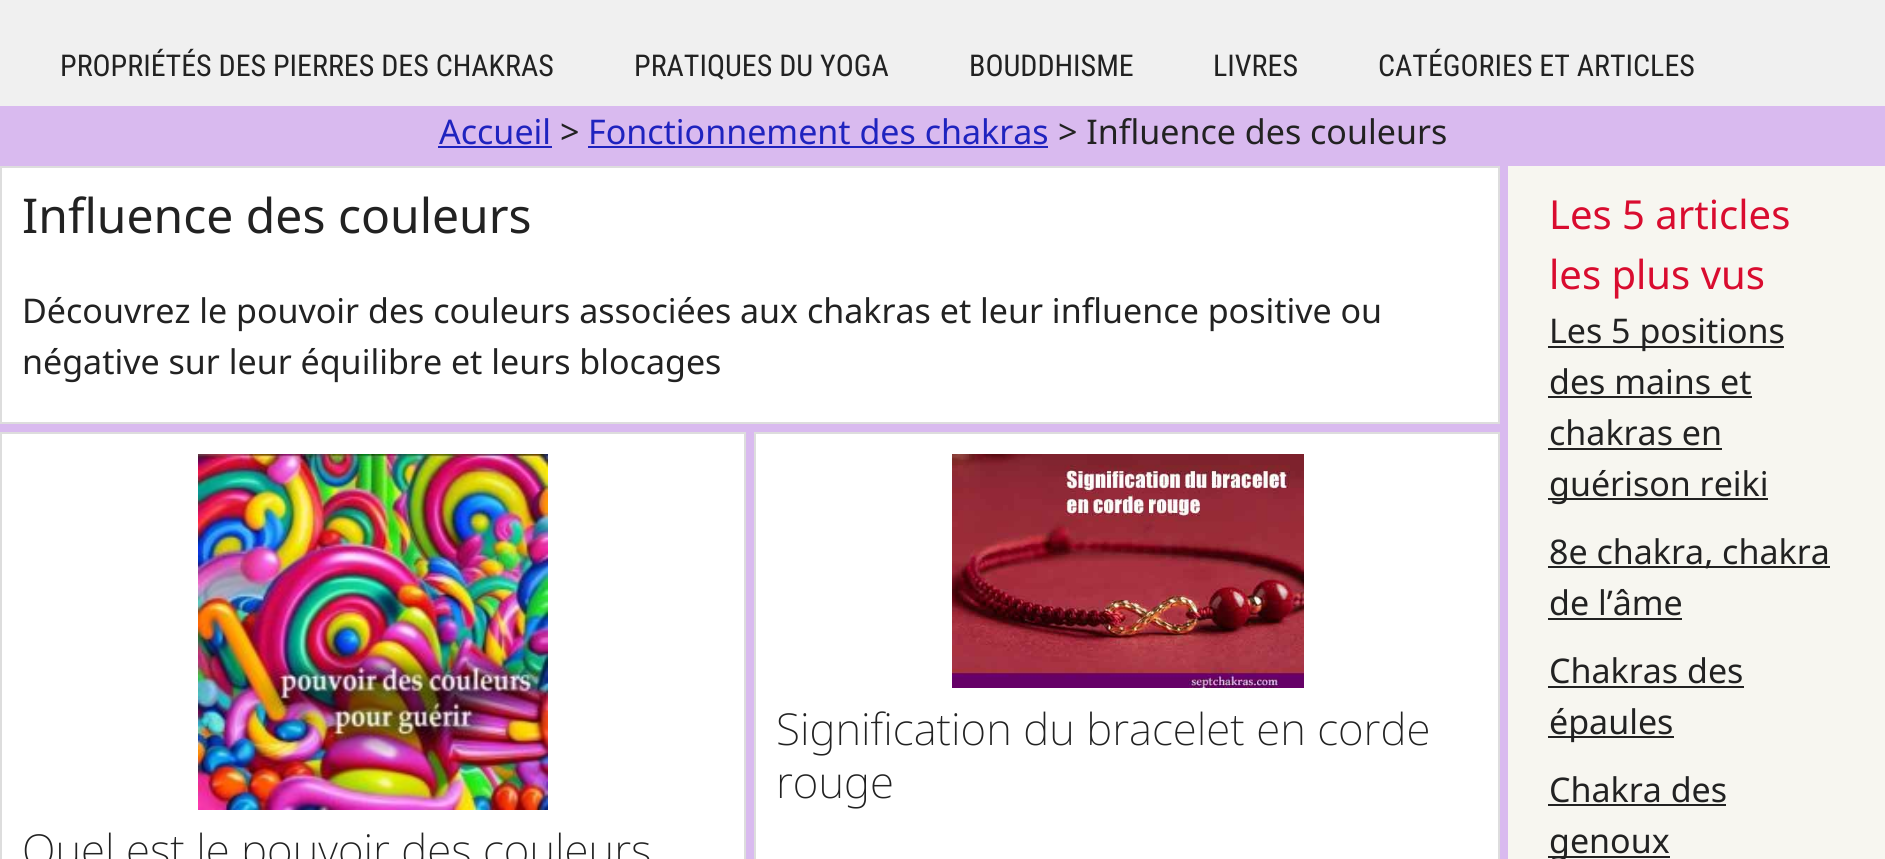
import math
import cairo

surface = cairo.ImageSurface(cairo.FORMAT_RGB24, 1885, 859)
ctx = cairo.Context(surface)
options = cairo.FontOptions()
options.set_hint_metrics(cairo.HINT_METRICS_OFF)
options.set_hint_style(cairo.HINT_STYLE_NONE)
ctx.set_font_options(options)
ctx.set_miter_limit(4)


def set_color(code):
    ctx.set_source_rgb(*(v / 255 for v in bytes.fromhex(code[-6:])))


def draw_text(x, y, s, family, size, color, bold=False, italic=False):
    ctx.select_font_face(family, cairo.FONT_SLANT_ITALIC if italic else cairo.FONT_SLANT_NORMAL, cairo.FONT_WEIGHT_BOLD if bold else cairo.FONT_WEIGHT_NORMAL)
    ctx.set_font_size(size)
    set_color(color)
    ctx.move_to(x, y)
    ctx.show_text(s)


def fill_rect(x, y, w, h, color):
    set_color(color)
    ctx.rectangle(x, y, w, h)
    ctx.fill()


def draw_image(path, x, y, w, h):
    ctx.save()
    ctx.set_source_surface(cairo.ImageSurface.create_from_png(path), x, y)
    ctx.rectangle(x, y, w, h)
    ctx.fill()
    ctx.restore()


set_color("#d9baef")
ctx.paint()
fill_rect(0, 0, 1885, 106, "#f0f0f0")
draw_text(60, 76, "PROPRIÉTÉS DES PIERRES DES CHAKRAS", "Roboto Condensed", 30, "#222222")
draw_text(634, 76, "PRATIQUES DU YOGA", "Roboto Condensed", 30, "#222222")
draw_text(969, 76, "BOUDDHISME", "Roboto Condensed", 30, "#222222")
draw_text(1213, 76, "LIVRES", "Roboto Condensed", 30, "#222222")
draw_text(1378, 76, "CATÉGORIES ET ARTICLES", "Roboto Condensed", 30, "#222222")
draw_text(439, 144, "Accueil", "Noto Sans", 34, "#1f23bf")
fill_rect(438, 146, 114, 2, "#1f23bf")
draw_text(560, 144, ">", "Noto Sans", 34, "#222222")
draw_text(588, 144, "Fonctionnement des chakras", "Noto Sans", 34, "#1f23bf")
fill_rect(588, 146, 460, 2, "#1f23bf")
draw_text(1058, 144, "> Influence des couleurs", "Noto Sans", 34, "#222222")
set_color("#ffffff")
ctx.rectangle(1, 167, 1498, 256)
ctx.fill_preserve()
set_color("#dddddd")
ctx.stroke()
draw_text(22, 233, "Influence des couleurs", "Noto Sans", 48, "#222222")
draw_text(22, 323, "Découvrez le pouvoir des couleurs associées aux chakras et leur influence positive ou", "Noto Sans", 34, "#222222")
draw_text(22, 374, "négative sur leur équilibre et leurs blocages", "Noto Sans", 34, "#222222")
set_color("#ffffff")
ctx.rectangle(755, 433, 744, 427)
ctx.fill_preserve()
set_color("#dddddd")
ctx.stroke()
draw_image("assets/img1.png", 952, 454, 352, 234)
draw_text(776, 745, "Signification du bracelet en corde", "Noto Sans ExtraLight", 44, "#222222")
draw_text(776, 798, "rouge", "Noto Sans ExtraLight", 44, "#222222")
set_color("#ffffff")
ctx.rectangle(1, 433, 744, 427)
ctx.fill_preserve()
set_color("#dddddd")
ctx.stroke()
draw_image("assets/img2.png", 198, 454, 350, 356)
draw_text(22, 866, "Quel est le pouvoir des couleurs", "Noto Sans ExtraLight", 44, "#222222")
fill_rect(1508, 166, 377, 693, "#f7f6f0")
draw_text(1549, 229, "Les 5 articles", "Noto Sans", 40, "#d90c2f")
draw_text(1549, 289, "les plus vus", "Noto Sans", 40, "#d90c2f")
fill_rect(1548, 346, 236, 2, "#222222")
draw_text(1549, 343, "Les 5 positions", "Noto Sans", 34, "#222222")
draw_text(1549, 394, "des mains et", "Noto Sans", 34, "#222222")
fill_rect(1548, 396, 204, 2, "#222222")
draw_text(1549, 445, "chakras en", "Noto Sans", 34, "#222222")
fill_rect(1548, 448, 174, 2, "#222222")
fill_rect(1548, 498, 220, 2, "#222222")
draw_text(1549, 496, "guérison reiki", "Noto Sans", 34, "#222222")
fill_rect(1548, 566, 282, 2, "#222222")
draw_text(1549, 564, "8e chakra, chakra", "Noto Sans", 34, "#222222")
draw_text(1549, 615, "de l’âme", "Noto Sans", 34, "#222222")
fill_rect(1548, 618, 134, 2, "#222222")
draw_text(1549, 683, "Chakras des", "Noto Sans", 34, "#222222")
fill_rect(1548, 686, 196, 2, "#222222")
fill_rect(1548, 736, 126, 2, "#222222")
draw_text(1549, 734, "épaules", "Noto Sans", 34, "#222222")
draw_text(1549, 802, "Chakra des", "Noto Sans", 34, "#222222")
fill_rect(1548, 804, 178, 2, "#222222")
fill_rect(1548, 856, 122, 2, "#222222")
draw_text(1549, 853, "genoux", "Noto Sans", 34, "#222222")
surface.write_to_png("output.png")
